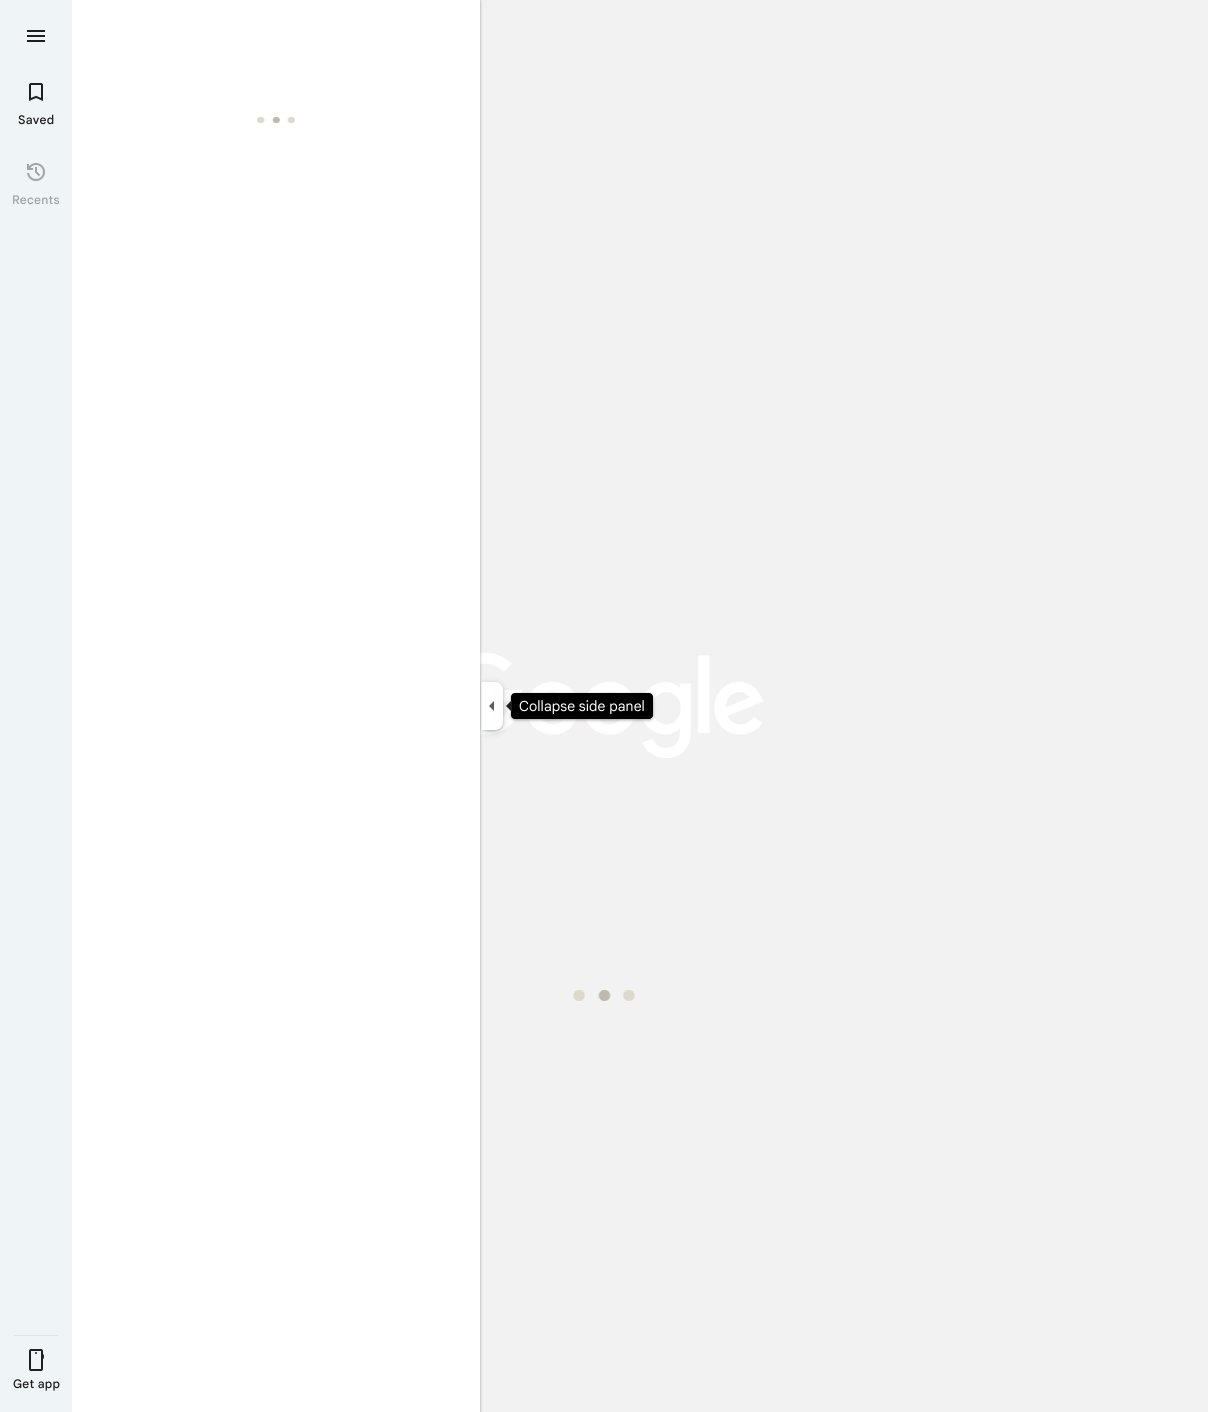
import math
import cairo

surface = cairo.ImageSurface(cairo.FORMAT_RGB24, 1208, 1412)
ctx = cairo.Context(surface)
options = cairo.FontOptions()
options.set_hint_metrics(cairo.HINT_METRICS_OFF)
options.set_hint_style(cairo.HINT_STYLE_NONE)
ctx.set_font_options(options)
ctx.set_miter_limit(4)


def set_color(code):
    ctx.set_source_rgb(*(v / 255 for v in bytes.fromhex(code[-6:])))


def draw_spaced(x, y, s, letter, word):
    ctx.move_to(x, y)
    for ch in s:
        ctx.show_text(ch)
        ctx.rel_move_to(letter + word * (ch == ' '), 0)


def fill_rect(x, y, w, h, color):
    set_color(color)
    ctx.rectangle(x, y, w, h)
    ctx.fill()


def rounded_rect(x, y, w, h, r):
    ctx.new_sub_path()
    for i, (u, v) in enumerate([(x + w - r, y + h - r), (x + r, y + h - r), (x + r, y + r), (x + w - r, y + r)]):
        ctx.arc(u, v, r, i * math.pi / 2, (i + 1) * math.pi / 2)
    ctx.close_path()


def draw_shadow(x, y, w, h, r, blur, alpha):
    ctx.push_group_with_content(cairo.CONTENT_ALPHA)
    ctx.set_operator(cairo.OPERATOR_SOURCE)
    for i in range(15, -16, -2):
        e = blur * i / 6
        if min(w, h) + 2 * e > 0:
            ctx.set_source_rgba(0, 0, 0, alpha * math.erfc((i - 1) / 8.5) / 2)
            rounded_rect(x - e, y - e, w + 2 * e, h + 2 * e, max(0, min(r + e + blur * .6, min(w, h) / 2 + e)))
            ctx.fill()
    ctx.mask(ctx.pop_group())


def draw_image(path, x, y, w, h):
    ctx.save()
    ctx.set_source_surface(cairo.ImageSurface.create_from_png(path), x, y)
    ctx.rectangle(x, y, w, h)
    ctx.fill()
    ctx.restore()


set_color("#f2f2f2")
ctx.paint()
draw_image("assets/img6.png", 480, 652, 283, 106)
set_color("#3c4043")
draw_shadow(478, 682, 27, 52, 10, 3, 0.15)
draw_shadow(480, 683, 23, 48, 8, 1, 0.3)
set_color("#ffffff")
ctx.new_path()
ctx.move_to(480, 682)
ctx.line_to(495, 682)
ctx.curve_to(499.5, 682, 503, 685.5, 503, 690)
ctx.line_to(503, 722)
ctx.curve_to(503, 726.5, 499.5, 730, 495, 730)
ctx.line_to(480, 730)
ctx.close_path()
ctx.fill()
fill_rect(480, 682, 1, 48, "#e3e3e3")
set_color("#3c4043")
draw_shadow(71, 0, 410, 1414, 0, 1.5, 0.15)
draw_shadow(72, 1, 408, 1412, 0, 1, 0.3)
fill_rect(0, 0, 72, 1412, "#eff5f6")
draw_image("assets/img1.png", 27, 30, 18, 12)
draw_image("assets/img2.png", 29, 83, 14, 18)
ctx.select_font_face("Google Sans Medium")
ctx.set_font_size(12)
set_color("#1f1f1f")
draw_spaced(18, 124, "Saved", 0.25, 0)
draw_image("assets/img3.png", 27, 163, 18, 18)
set_color("#a0a4a4")
draw_spaced(12, 204, "Recents", 0.25, 0)
fill_rect(14, 1335, 44, 1, "#e3e3e3")
draw_image("assets/img4.png", 29, 1349, 15, 22)
set_color("#1f1f1f")
draw_spaced(13, 1388, "Get app", 0.25, 0)
fill_rect(72, 0, 408, 1412, "#ffffff")
draw_image("assets/img5.png", 257, 116, 38, 8)
set_color("#5e5e5e")
ctx.new_path()
ctx.move_to(494, 711)
ctx.line_to(489, 706)
ctx.line_to(494, 701)
ctx.close_path()
ctx.fill()
set_color("#3c4043")
draw_shadow(510, 693, 144, 28, 5, 1.5, 0.15)
draw_shadow(511, 694, 142, 26, 4, 1, 0.3)
set_color("#000000")
rounded_rect(511, 693, 142, 26, 4)
ctx.fill()
set_color("#1f1f1f")
ctx.new_path()
ctx.move_to(512, 700)
ctx.line_to(512, 712)
ctx.line_to(506, 706)
ctx.close_path()
ctx.fill()
ctx.select_font_face("Google Sans")
ctx.set_font_size(14)
set_color("#ffffff")
draw_spaced(519, 711, "Collapse side panel", 0.1, 0)
draw_image("assets/img7.png", 573, 990, 62, 11)
surface.write_to_png("output.png")
